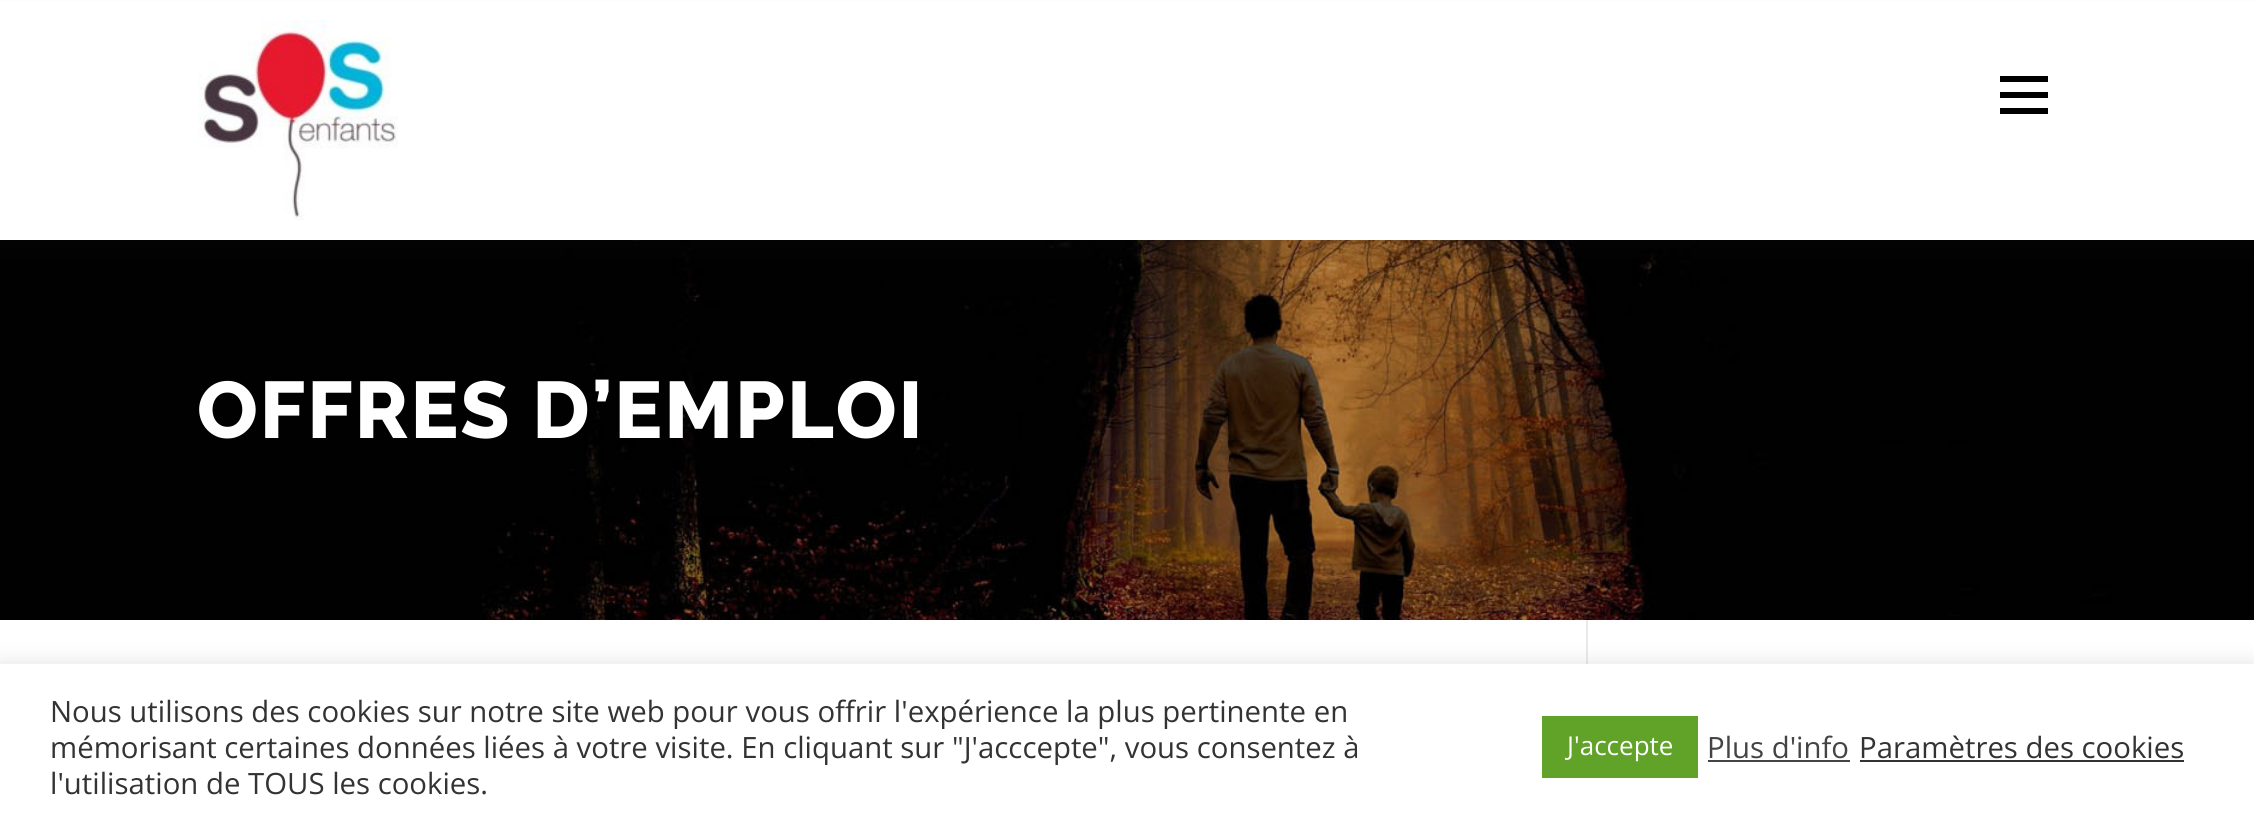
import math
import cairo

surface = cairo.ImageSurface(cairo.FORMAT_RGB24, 2254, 827)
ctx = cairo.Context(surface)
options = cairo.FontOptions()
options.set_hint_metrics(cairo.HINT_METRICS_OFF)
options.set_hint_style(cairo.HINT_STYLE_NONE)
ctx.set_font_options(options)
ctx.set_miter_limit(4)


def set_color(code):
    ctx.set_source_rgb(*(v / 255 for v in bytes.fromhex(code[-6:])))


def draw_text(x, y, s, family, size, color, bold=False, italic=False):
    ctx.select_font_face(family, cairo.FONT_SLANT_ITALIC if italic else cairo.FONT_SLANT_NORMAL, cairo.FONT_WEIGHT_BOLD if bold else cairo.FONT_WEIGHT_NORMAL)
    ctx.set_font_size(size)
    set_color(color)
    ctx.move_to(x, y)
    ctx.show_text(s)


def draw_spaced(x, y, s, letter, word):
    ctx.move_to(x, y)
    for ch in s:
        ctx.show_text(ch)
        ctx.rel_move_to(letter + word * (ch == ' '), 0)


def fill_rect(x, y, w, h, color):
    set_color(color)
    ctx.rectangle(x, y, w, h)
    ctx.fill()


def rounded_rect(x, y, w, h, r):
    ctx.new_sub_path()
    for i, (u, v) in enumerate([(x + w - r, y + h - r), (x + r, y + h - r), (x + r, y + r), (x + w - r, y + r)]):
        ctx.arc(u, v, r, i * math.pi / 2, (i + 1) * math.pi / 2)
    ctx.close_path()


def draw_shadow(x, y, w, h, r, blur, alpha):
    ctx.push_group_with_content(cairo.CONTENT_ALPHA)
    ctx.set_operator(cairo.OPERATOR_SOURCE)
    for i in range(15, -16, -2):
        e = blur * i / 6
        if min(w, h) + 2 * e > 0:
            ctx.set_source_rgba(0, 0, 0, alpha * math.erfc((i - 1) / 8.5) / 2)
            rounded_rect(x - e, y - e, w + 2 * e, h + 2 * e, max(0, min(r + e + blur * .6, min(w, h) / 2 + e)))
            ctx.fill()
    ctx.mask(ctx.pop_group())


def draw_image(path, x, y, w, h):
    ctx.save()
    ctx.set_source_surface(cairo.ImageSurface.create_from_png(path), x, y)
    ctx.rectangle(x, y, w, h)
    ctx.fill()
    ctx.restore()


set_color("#ffffff")
ctx.paint()
draw_image("assets/img2.png", 0, 240, 2254, 380)
set_color("#323232")
draw_shadow(0, 10, 2254, 240, 0, 10, 0.06)
fill_rect(0, 2, 2254, 238, "#ffffff")
draw_image("assets/img1.png", 198, 20, 200, 200)
fill_rect(2000, 92, 48, 6, "#000000")
fill_rect(2000, 76, 48, 6, "#000000")
fill_rect(2000, 108, 48, 6, "#000000")
ctx.select_font_face("Raleway ExtraBold")
ctx.set_font_size(80)
set_color("#ffffff")
draw_spaced(197, 438, "OFFRES D’EMPLOI", 2, 0)
fill_rect(1586, 620, 2, 44, "#e9e9e9")
set_color("#acabab")
draw_shadow(0, 662, 2254, 164, 0, 10, 0.3)
fill_rect(0, 664, 2254, 163, "#ffffff")
draw_text(50, 722, "Nous utilisons des cookies sur notre site web pour vous offrir l'expérience la plus pertinente en", "Open Sans", 29.35, "#333333")
draw_text(50, 758, "mémorisant certaines données liées à votre visite. En cliquant sur \"J'acccepte\", vous consentez à", "Open Sans", 29.35, "#333333")
draw_text(50, 794, "l'utilisation de TOUS les cookies.", "Open Sans", 29.35, "#333333")
fill_rect(1542, 716, 156, 62, "#61a229")
draw_text(1567, 755, "J'accepte", "Open Sans", 26, "#ffffff")
draw_text(1707, 758, "Plus d'info", "Open Sans", 29.35, "#444444")
fill_rect(1708, 760, 142, 2, "#444444")
draw_text(1859, 758, "Paramètres des cookies", "Open Sans", 29.35, "#333333")
fill_rect(1860, 760, 324, 2, "#333333")
surface.write_to_png("output.png")
